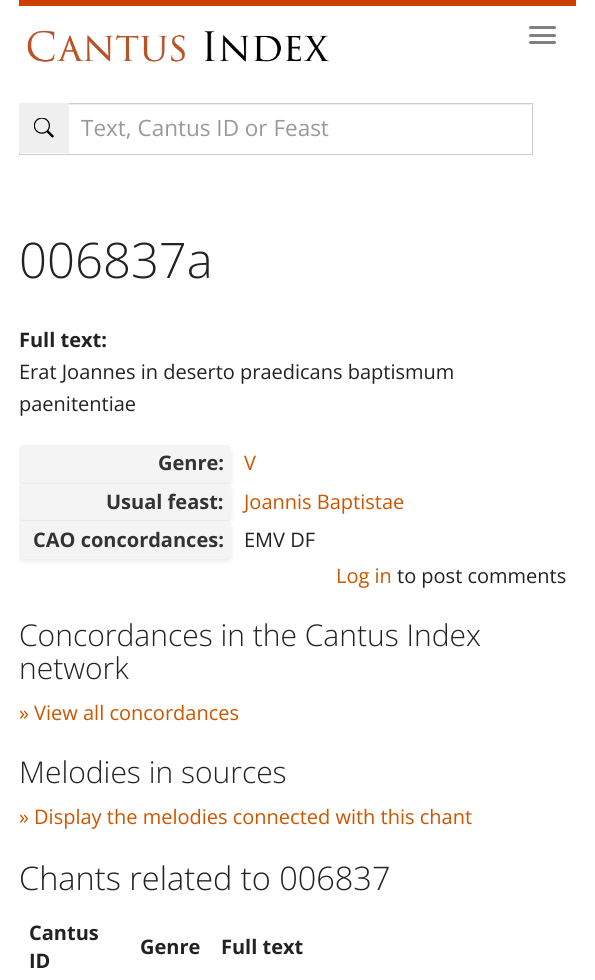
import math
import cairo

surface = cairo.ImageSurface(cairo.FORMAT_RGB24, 595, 980)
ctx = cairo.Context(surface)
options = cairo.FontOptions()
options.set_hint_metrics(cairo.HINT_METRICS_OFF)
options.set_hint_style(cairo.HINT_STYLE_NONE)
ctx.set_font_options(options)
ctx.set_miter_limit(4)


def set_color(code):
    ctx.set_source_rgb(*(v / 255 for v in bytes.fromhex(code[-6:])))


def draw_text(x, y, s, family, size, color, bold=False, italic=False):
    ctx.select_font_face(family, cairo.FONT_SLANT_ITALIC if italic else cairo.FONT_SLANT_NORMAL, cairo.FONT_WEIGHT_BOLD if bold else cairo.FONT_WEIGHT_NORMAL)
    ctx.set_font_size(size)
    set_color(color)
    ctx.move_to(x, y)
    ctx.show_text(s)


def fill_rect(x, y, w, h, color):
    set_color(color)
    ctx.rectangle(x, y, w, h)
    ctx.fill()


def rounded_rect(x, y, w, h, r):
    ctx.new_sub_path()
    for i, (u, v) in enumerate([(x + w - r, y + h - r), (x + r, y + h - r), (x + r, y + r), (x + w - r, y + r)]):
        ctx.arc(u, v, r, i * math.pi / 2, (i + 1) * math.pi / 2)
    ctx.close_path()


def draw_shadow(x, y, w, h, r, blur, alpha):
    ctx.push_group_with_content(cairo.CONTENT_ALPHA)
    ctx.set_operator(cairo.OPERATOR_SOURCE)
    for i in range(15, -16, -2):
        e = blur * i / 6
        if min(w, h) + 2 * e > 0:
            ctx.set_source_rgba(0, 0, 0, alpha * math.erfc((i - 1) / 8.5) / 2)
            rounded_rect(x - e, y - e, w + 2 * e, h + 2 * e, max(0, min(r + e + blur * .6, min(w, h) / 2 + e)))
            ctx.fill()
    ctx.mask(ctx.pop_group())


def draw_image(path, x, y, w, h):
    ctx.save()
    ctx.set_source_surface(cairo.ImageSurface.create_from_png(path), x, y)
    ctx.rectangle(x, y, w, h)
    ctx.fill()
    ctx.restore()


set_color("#ffffff")
ctx.paint()
fill_rect(19, 0, 557, 6, "#ce4000")
draw_image("assets/img1.png", 27, 30, 302, 32)
set_color("#808080")
rounded_rect(529, 26, 27, 3, 1.5)
ctx.fill()
rounded_rect(529, 34, 27, 3, 1.5)
ctx.fill()
rounded_rect(529, 41, 27, 3, 1.5)
ctx.fill()
fill_rect(69, 104, 462, 1, "#ececec")
ctx.rectangle(19.5, 103.5, 513, 51)
set_color("#cccccc")
ctx.set_line_width(1)
ctx.stroke()
fill_rect(19, 103, 50, 50, "#efefef")
draw_image("assets/img2.png", 34, 118, 20, 20)
draw_text(81, 136, "Text, Cantus ID or Feast", "Open Sans", 22.5, "#999999")
draw_text(19, 278, "006837a", "Open Sans Light", 49, "#222222")
draw_text(19, 347, "Full text:", "Open Sans", 20, "#222222", bold=True)
draw_text(19, 379, "Erat Joannes in deserto praedicans baptismum", "Open Sans", 20, "#222222")
draw_text(19, 411, "paenitentiae", "Open Sans", 20, "#222222")
ctx.save()
ctx.rectangle(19, 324, 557, 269)
ctx.clip()
set_color("#000000")
draw_shadow(19, 448, 212, 37, 5, 2.5, 0.1)
ctx.restore()
set_color("#f4f4f4")
rounded_rect(19, 445, 212, 38, 5)
ctx.fill()
draw_text(158, 470, "Genre:", "Open Sans", 20, "#333333", bold=True)
draw_text(244, 470, "V", "Open Sans", 20, "#cc5500")
ctx.save()
ctx.rectangle(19, 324, 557, 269)
ctx.clip()
set_color("#000000")
draw_shadow(19, 486, 212, 37, 5, 2.5, 0.1)
ctx.restore()
set_color("#f4f4f4")
rounded_rect(19, 484, 212, 36, 5)
ctx.fill()
draw_text(106, 509, "Usual feast:", "Open Sans", 20, "#333333", bold=True)
draw_text(244, 509, "Joannis Baptistae", "Open Sans", 20, "#cc5500")
ctx.save()
ctx.rectangle(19, 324, 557, 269)
ctx.clip()
set_color("#000000")
draw_shadow(19, 524, 212, 37, 5, 2.5, 0.1)
ctx.restore()
set_color("#f4f4f4")
rounded_rect(19, 521, 212, 38, 5)
ctx.fill()
draw_text(33, 547, "CAO concordances:", "Open Sans", 20, "#333333", bold=True)
draw_text(244, 547, "EMV DF", "Open Sans", 20, "#222222")
draw_text(336, 583, "Log in", "Open Sans", 20, "#cc5500")
draw_text(397, 583, "to post comments", "Open Sans", 20, "#222222")
draw_text(19, 646, "Concordances in the Cantus Index", "Open Sans Light", 30, "#222222")
draw_text(19, 679, "network", "Open Sans Light", 30, "#222222")
draw_text(19, 720, "» View all concordances", "Open Sans", 20, "#cc5500")
draw_text(19, 783, "Melodies in sources", "Open Sans Light", 30, "#222222")
draw_text(19, 824, "» Display the melodies connected with this chant", "Open Sans", 20, "#cc5500")
draw_text(19, 890, "Chants related to 006837", "Open Sans Light", 32.5, "#222222")
draw_text(29, 940, "Cantus", "Open Sans", 20, "#222222", bold=True)
draw_text(29, 968, "ID", "Open Sans", 20, "#222222", bold=True)
draw_text(140, 954, "Genre", "Open Sans", 20, "#222222", bold=True)
draw_text(221, 954, "Full text", "Open Sans", 20, "#222222", bold=True)
surface.write_to_png("output.png")
